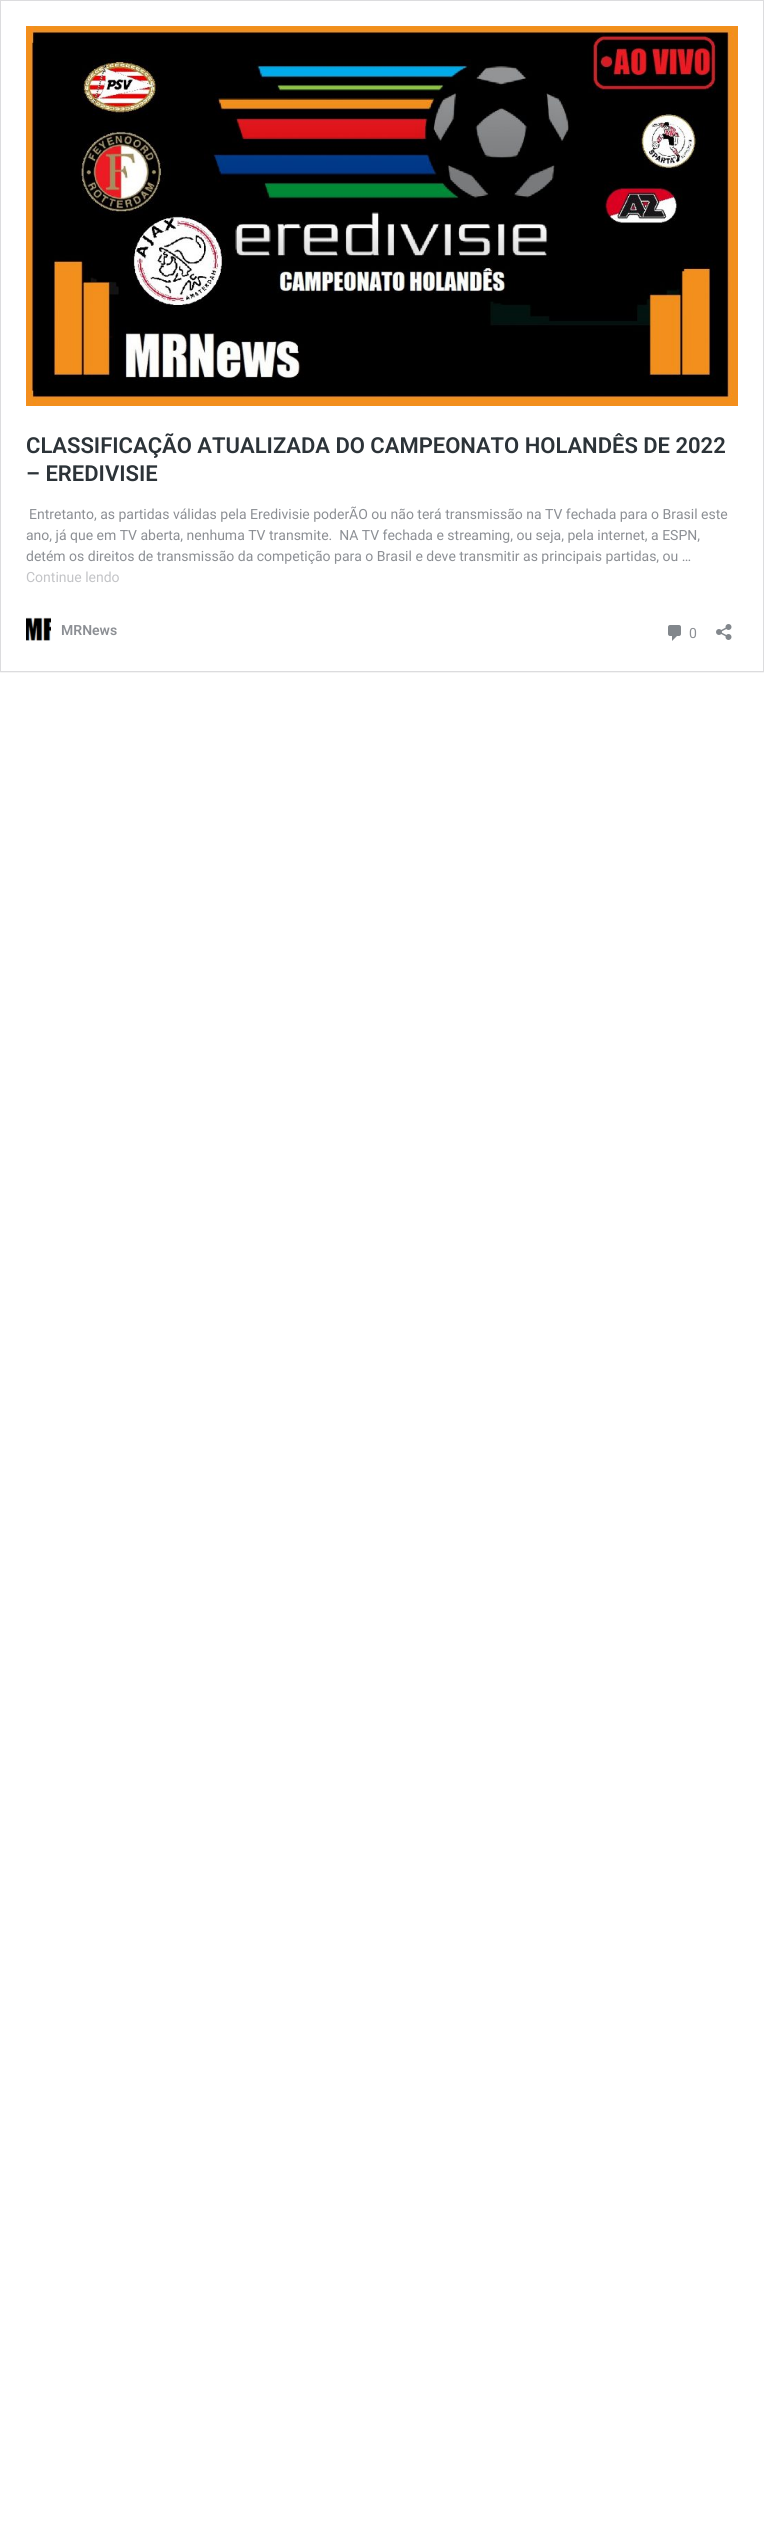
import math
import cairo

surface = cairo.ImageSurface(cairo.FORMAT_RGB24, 764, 2539)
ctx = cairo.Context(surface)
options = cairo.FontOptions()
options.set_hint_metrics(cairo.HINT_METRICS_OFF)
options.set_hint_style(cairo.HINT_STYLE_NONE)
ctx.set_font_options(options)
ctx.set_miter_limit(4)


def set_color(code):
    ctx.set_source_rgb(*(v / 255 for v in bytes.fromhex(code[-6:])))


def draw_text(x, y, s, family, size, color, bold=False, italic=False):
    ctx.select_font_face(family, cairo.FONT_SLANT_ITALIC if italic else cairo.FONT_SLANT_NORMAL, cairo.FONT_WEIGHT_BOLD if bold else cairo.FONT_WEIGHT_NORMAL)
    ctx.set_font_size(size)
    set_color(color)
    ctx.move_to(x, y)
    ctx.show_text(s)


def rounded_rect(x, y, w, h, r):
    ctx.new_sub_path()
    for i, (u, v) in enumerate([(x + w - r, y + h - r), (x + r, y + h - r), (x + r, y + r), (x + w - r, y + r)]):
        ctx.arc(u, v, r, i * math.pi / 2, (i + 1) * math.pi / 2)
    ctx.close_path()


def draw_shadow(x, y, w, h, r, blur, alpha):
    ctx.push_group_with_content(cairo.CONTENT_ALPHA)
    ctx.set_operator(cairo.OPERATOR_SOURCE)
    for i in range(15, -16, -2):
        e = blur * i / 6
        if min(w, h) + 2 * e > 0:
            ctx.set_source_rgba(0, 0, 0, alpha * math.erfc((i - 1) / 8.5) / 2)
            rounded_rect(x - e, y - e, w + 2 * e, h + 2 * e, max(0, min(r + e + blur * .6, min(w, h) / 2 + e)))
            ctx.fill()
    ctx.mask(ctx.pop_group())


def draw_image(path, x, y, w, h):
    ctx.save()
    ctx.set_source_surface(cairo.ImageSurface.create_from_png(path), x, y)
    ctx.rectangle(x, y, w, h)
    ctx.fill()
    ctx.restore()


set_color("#ffffff")
ctx.paint()
ctx.save()
ctx.rectangle(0, 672, 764, 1)
ctx.clip()
set_color("#000000")
draw_shadow(0, 1, 764, 672, 0, 0.5, 0.05)
ctx.restore()
ctx.rectangle(0.5, 0.5, 763, 671)
set_color("#dcdcde")
ctx.set_line_width(1)
ctx.stroke()
draw_image("assets/img1.png", 26, 26, 712, 380)
draw_text(26, 453, "CLASSIFICAÇÃO ATUALIZADA DO CAMPEONATO HOLANDÊS DE 2022", "Roboto SemiBold", 22, "#2c3338")
draw_text(26, 481, "– EREDIVISIE", "Roboto SemiBold", 22, "#2c3338")
draw_text(29, 519, "Entretanto, as partidas válidas pela Eredivisie poderÃO ou não terá transmissão na TV fechada para o Brasil este", "Roboto", 14, "#8c8f94")
draw_text(26, 540, "ano, já que em TV aberta, nenhuma TV transmite.  NA TV fechada e streaming, ou seja, pela internet, a ESPN,", "Roboto", 14, "#8c8f94")
draw_text(26, 561, "detém os direitos de transmissão da competição para o Brasil e deve transmitir as principais partidas, ou …", "Roboto", 14, "#8c8f94")
draw_text(26, 582, "Continue lendo", "Roboto", 14, "#c3c4c7")
draw_image("assets/img2.png", 26, 617, 25, 24)
draw_text(61, 635, "MRNews", "Roboto SemiBold", 14, "#8c8f94")
draw_image("assets/img3.png", 668, 625, 13, 16)
draw_text(689, 638, "0", "Roboto", 14, "#8c8f94")
draw_image("assets/img4.png", 716, 624, 16, 16)
surface.write_to_png("output.png")
